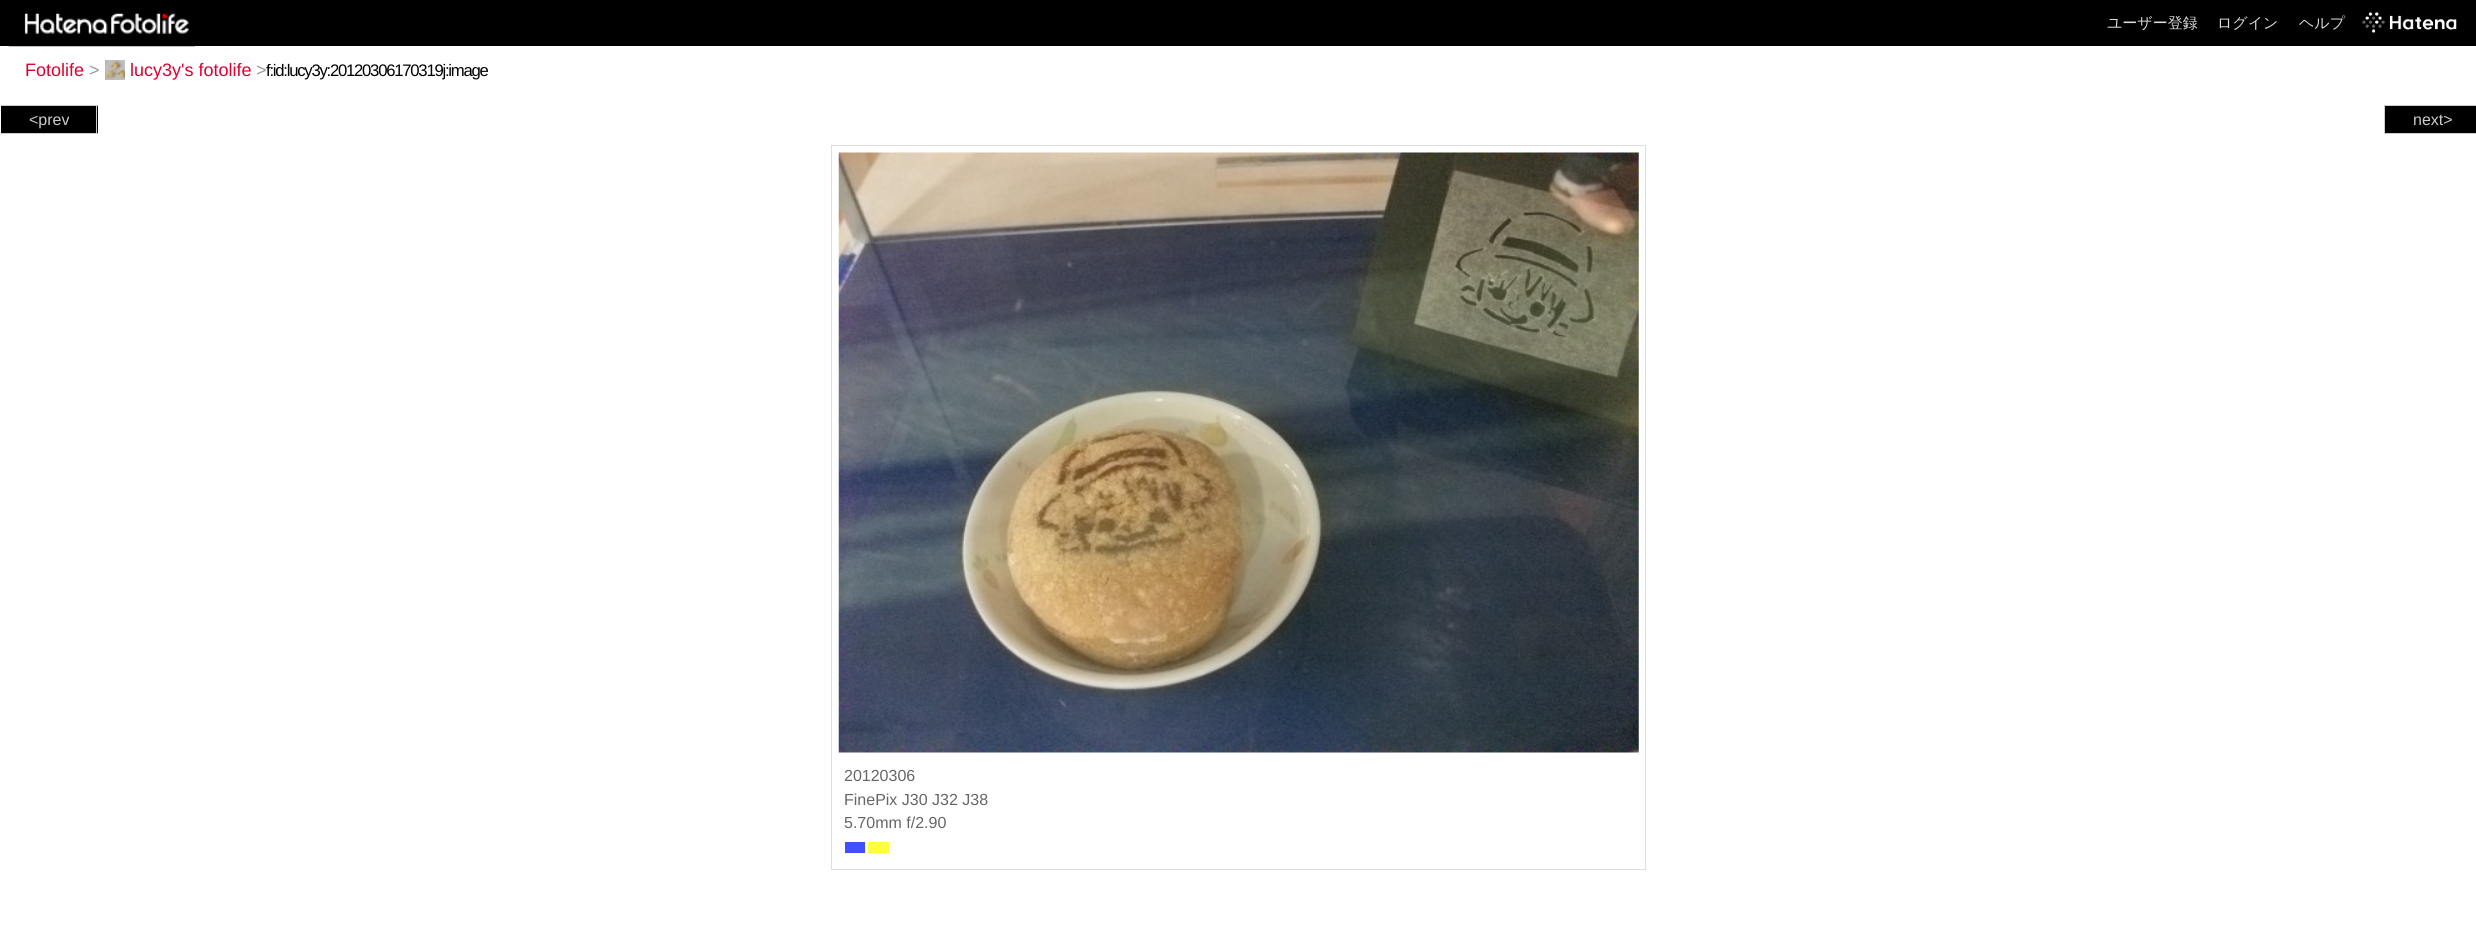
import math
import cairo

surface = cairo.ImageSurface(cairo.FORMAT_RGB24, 2476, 940)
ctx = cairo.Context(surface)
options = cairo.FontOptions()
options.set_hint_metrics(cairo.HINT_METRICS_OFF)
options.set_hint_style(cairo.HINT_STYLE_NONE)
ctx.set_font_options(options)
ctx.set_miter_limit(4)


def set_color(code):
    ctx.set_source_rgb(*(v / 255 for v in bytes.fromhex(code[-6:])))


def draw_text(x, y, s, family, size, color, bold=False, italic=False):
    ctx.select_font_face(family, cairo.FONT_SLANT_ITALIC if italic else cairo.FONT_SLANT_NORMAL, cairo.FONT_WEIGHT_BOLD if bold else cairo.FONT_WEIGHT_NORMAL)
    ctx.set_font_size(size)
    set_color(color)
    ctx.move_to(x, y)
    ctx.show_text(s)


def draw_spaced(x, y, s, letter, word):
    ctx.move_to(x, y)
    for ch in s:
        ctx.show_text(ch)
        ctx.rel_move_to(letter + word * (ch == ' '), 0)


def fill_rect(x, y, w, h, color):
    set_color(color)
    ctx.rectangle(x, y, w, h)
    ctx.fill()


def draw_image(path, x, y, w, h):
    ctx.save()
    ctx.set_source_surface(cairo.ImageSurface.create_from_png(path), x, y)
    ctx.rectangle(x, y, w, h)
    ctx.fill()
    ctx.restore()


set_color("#ffffff")
ctx.paint()
fill_rect(0, 0, 2476, 46, "#000000")
draw_image("assets/img1.png", 8, 13, 104, 34)
draw_image("assets/img2.png", 111, 13, 84, 34)
draw_text(2107, 28, "ユーザー登録", "WenQuanYi Zen Hei Medium", 15, "#dddddd")
draw_text(2217, 28, "ログイン", "WenQuanYi Zen Hei Medium", 15, "#dddddd")
draw_text(2299, 28, "ヘルプ", "WenQuanYi Zen Hei Medium", 15, "#dddddd")
draw_image("assets/img3.png", 2362, 12, 95, 21)
draw_text(25, 76, "Fotolife", "Liberation Sans", 18, "#de002f")
draw_text(89, 76, ">", "Liberation Sans", 18, "#999999")
draw_image("assets/img4.png", 105, 60, 20, 20)
draw_text(130, 76, "lucy3y's fotolife", "Liberation Sans", 18, "#de002f")
draw_text(256, 76, ">", "Liberation Sans", 18, "#999999")
ctx.set_font_size(16.7)
set_color("#000000")
draw_spaced(266, 76, "f:id:lucy3y:20120306170319j:image", -1.25, 0)
fill_rect(1, 106, 97, 27, "#000000")
fill_rect(1, 105, 97, 1, "#cccccc")
fill_rect(96, 105, 1, 29, "#cccccc")
fill_rect(1, 133, 97, 1, "#cccccc")
draw_text(29, 125, "<prev", "Liberation Sans", 16, "#cccccc")
fill_rect(2385, 106, 91, 27, "#000000")
fill_rect(2384, 105, 92, 1, "#cccccc")
fill_rect(2384, 133, 92, 1, "#cccccc")
fill_rect(2384, 105, 1, 29, "#cccccc")
draw_text(2413, 125, "next>", "Liberation Sans", 16, "#cccccc")
ctx.rectangle(831.5, 145.5, 814, 724)
set_color("#dedede")
ctx.set_line_width(1)
ctx.stroke()
draw_image("assets/img5.png", 838, 152, 801, 601)
draw_text(844, 781, "20120306", "Liberation Sans", 16, "#666666")
draw_text(844, 805, "FinePix J30 J32 J38", "Liberation Sans", 16, "#666666")
draw_text(844, 828, "5.70mm f/2.90", "Liberation Sans", 16, "#666666")
fill_rect(845, 842, 20, 11, "#4050ff")
fill_rect(868, 842, 21, 11, "#ffff40")
surface.write_to_png("output.png")
